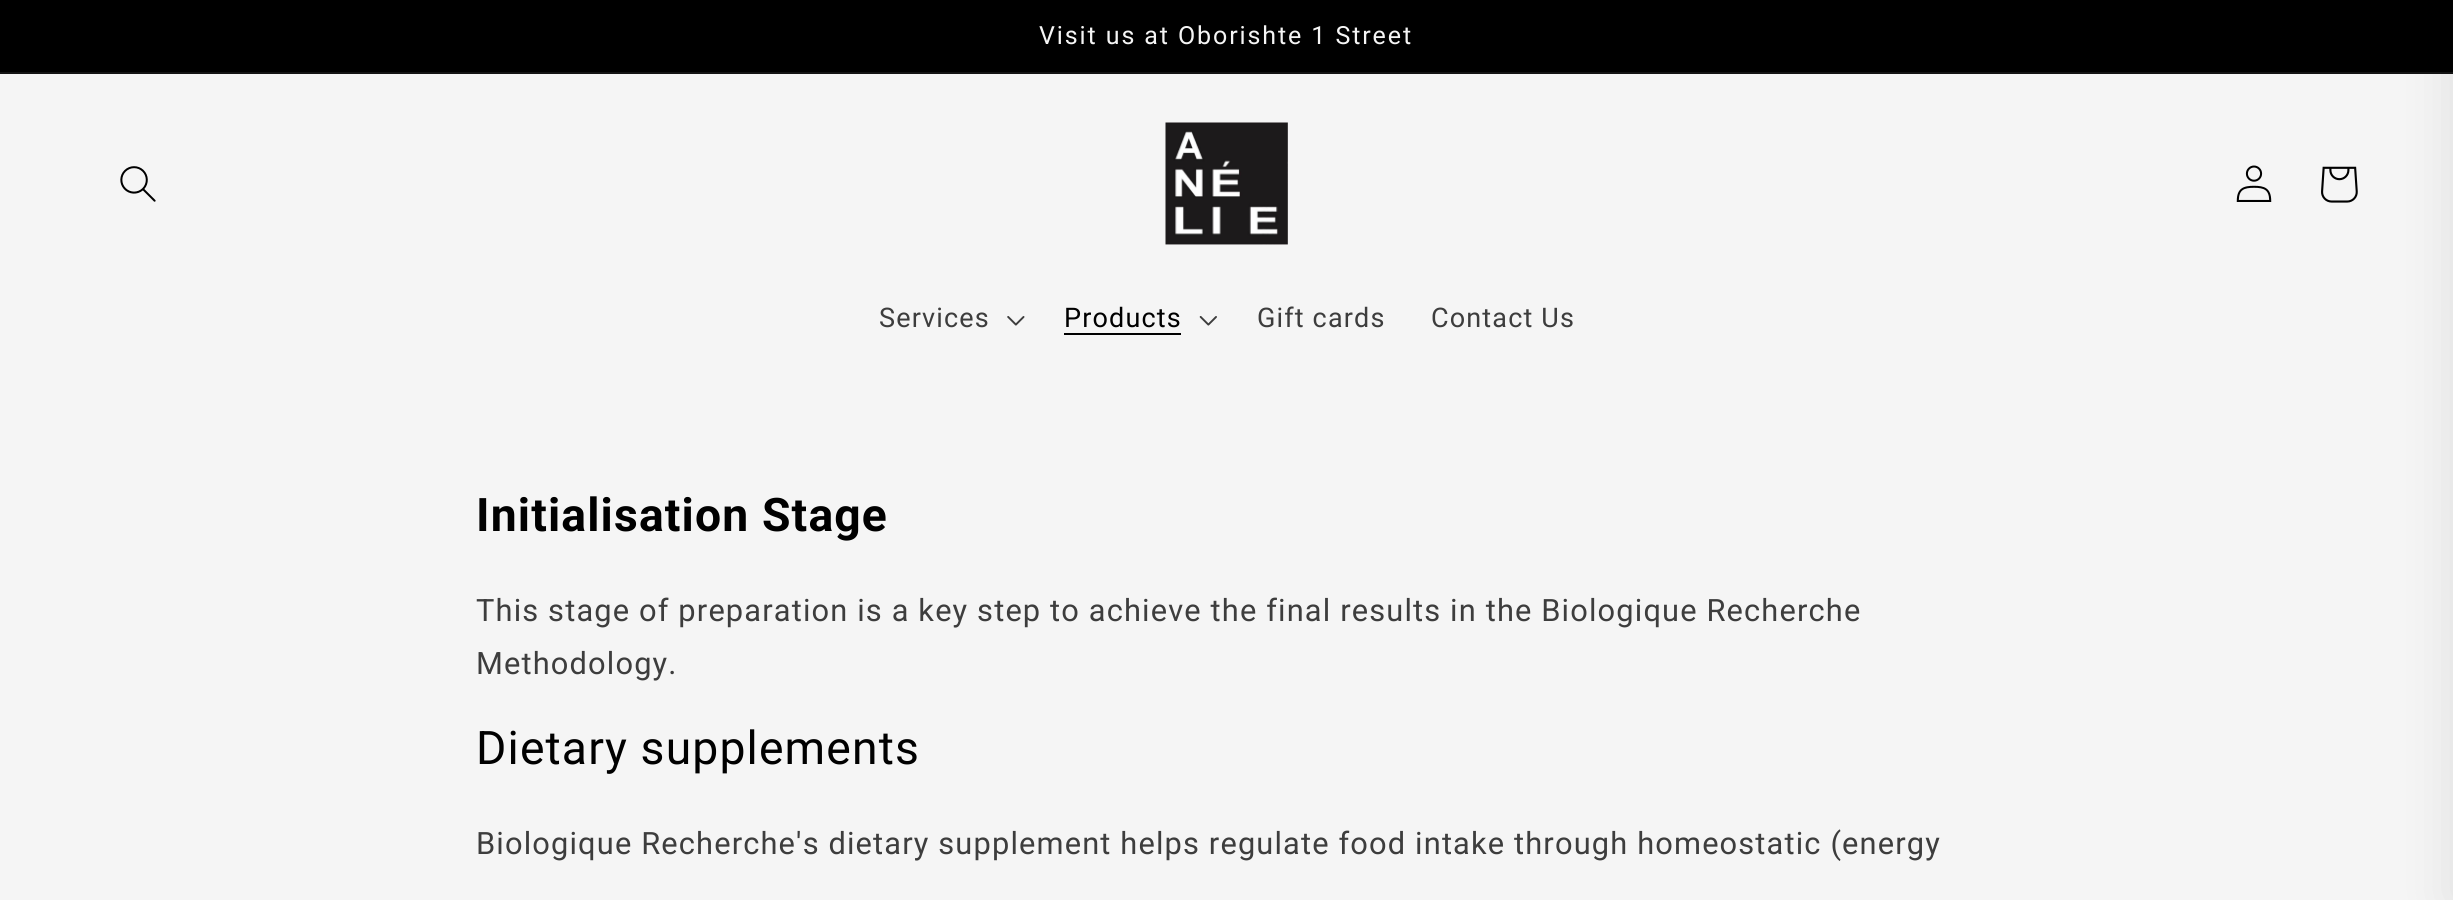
import math
import cairo

surface = cairo.ImageSurface(cairo.FORMAT_RGB24, 2453, 900)
ctx = cairo.Context(surface)
options = cairo.FontOptions()
options.set_hint_metrics(cairo.HINT_METRICS_OFF)
options.set_hint_style(cairo.HINT_STYLE_NONE)
ctx.set_font_options(options)
ctx.set_miter_limit(4)


def set_color(code):
    ctx.set_source_rgb(*(v / 255 for v in bytes.fromhex(code[-6:])))


def draw_spaced(x, y, s, letter, word):
    ctx.move_to(x, y)
    for ch in s:
        ctx.show_text(ch)
        ctx.rel_move_to(letter + word * (ch == ' '), 0)


def fill_rect(x, y, w, h, color):
    set_color(color)
    ctx.rectangle(x, y, w, h)
    ctx.fill()


def rounded_rect(x, y, w, h, r):
    ctx.new_sub_path()
    for i, (u, v) in enumerate([(x + w - r, y + h - r), (x + r, y + h - r), (x + r, y + r), (x + w - r, y + r)]):
        ctx.arc(u, v, r, i * math.pi / 2, (i + 1) * math.pi / 2)
    ctx.close_path()


def draw_shadow(x, y, w, h, r, blur, alpha):
    ctx.push_group_with_content(cairo.CONTENT_ALPHA)
    ctx.set_operator(cairo.OPERATOR_SOURCE)
    for i in range(15, -16, -2):
        e = blur * i / 6
        if min(w, h) + 2 * e > 0:
            ctx.set_source_rgba(0, 0, 0, alpha * math.erfc((i - 1) / 8.5) / 2)
            rounded_rect(x - e, y - e, w + 2 * e, h + 2 * e, max(0, min(r + e + blur * .6, min(w, h) / 2 + e)))
            ctx.fill()
    ctx.mask(ctx.pop_group())


def draw_image(path, x, y, w, h):
    ctx.save()
    ctx.set_source_surface(cairo.ImageSurface.create_from_png(path), x, y)
    ctx.rectangle(x, y, w, h)
    ctx.fill()
    ctx.restore()


set_color("#f5f5f5")
ctx.paint()
fill_rect(0, 0, 2453, 72, "#000000")
fill_rect(0, 72, 2453, 2, "#141414")
ctx.select_font_face("Roboto")
ctx.set_font_size(25)
set_color("#f5f5f5")
draw_spaced(1039, 44, "Visit us at Oborishte 1 Street", 1.9, 0)
set_color("#000000")
draw_shadow(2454, 0, 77, 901, 0, 26, 0.1)
draw_image("assets/img1.png", 120, 166, 36, 36)
draw_image("assets/img2.png", 1165, 122, 123, 123)
draw_image("assets/img3.png", 2236, 165, 36, 37)
draw_image("assets/img4.png", 2321, 166, 37, 37)
ctx.set_font_size(27)
set_color("#3d3d3d")
draw_spaced(879, 327, "Services", 1.15, 0)
draw_image("assets/img5.png", 1007, 316, 18, 10)
set_color("#000000")
draw_spaced(1064, 327, "Products", 1.15, 0)
fill_rect(1064, 333, 117, 2, "#000000")
draw_image("assets/img6.png", 1199, 316, 18, 10)
set_color("#3d3d3d")
draw_spaced(1257, 327, "Gift cards", 1.15, 0)
draw_spaced(1431, 327, "Contact Us", 1.15, 0)
ctx.select_font_face("Roboto", cairo.FONT_SLANT_NORMAL, cairo.FONT_WEIGHT_BOLD)
ctx.set_font_size(46.25)
set_color("#000000")
draw_spaced(476, 531, "Initialisation Stage", 1.15, 0)
ctx.select_font_face("Roboto")
ctx.set_font_size(30.8)
set_color("#3d3d3d")
draw_spaced(476, 621, "This stage of preparation is a key step to achieve the final results in the Biologique Recherche", 1.15, 0)
draw_spaced(476, 674, "Methodology.", 1.15, 0)
ctx.set_font_size(46.25)
set_color("#000000")
draw_spaced(476, 764, "Dietary supplements", 1.15, 0)
ctx.set_font_size(30.8)
set_color("#3d3d3d")
draw_spaced(476, 854, "Biologique Recherche's dietary supplement helps regulate food intake through homeostatic (energy", 1.15, 0)
surface.write_to_png("output.png")
